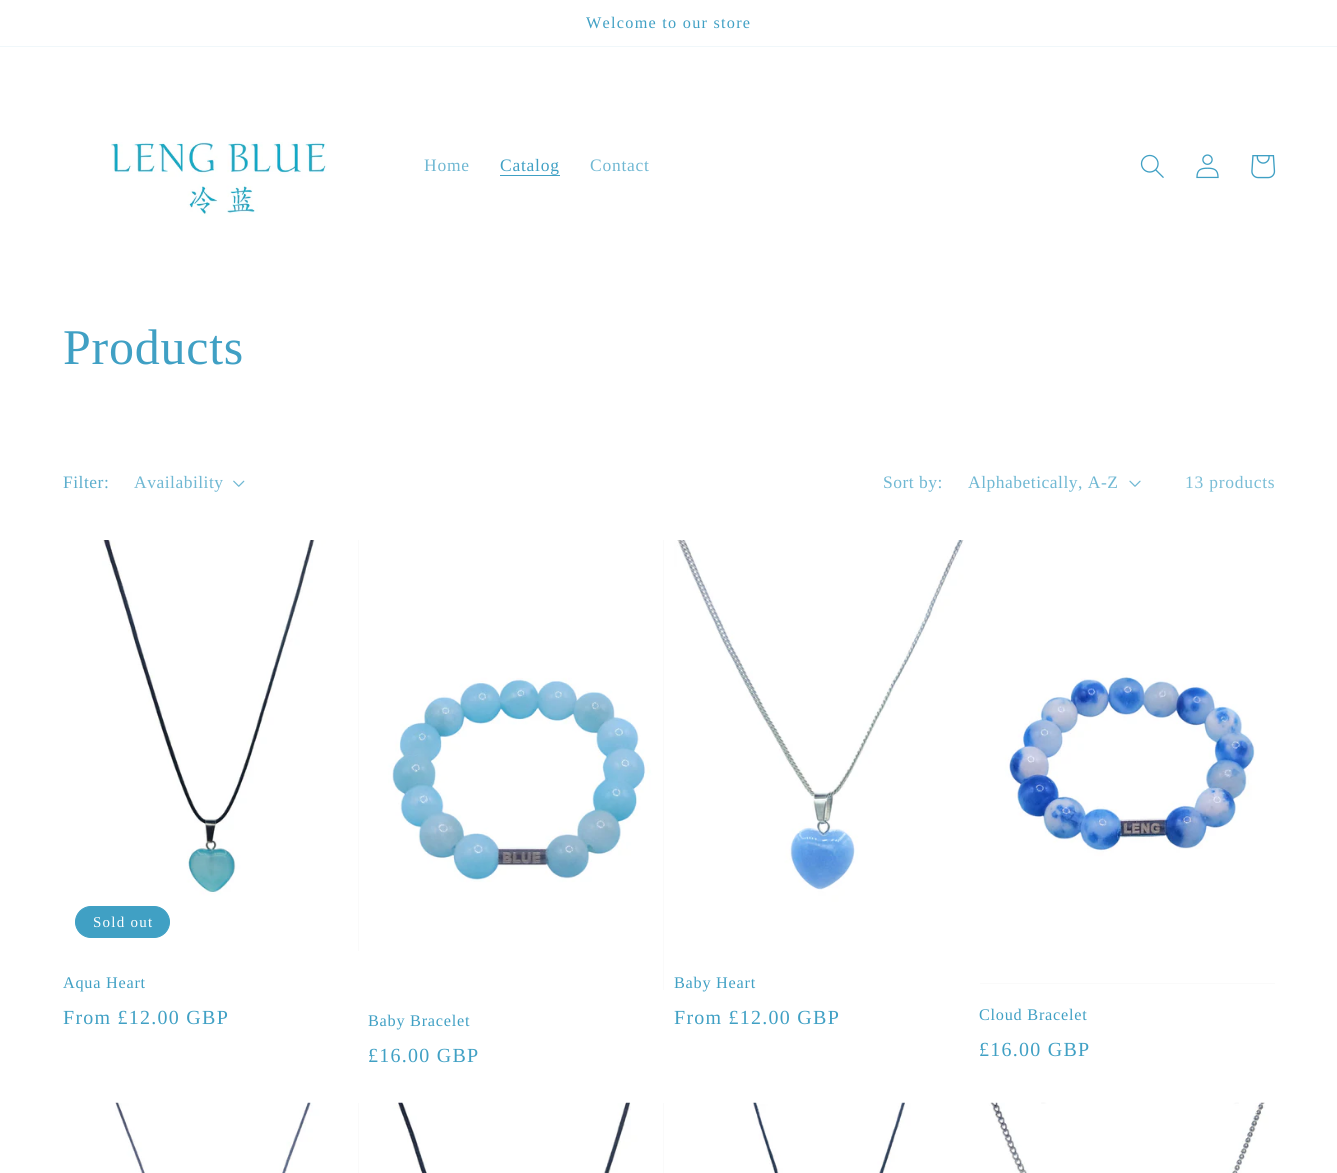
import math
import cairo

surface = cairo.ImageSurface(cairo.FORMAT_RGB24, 1337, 1173)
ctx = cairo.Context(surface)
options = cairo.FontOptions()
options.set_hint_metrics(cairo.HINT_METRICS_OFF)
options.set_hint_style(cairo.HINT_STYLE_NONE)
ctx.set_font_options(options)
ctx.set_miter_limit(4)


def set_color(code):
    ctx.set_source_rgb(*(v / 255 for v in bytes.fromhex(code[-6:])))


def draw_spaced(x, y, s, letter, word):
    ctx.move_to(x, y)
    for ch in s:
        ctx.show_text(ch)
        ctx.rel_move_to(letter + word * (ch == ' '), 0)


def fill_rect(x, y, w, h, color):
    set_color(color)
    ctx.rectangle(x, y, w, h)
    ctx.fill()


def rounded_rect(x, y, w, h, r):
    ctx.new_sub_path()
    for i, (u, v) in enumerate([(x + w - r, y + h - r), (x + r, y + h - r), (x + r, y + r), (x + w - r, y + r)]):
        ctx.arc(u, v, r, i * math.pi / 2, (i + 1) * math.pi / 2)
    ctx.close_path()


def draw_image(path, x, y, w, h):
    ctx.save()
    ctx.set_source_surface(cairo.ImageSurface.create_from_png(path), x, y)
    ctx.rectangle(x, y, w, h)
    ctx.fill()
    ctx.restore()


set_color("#ffffff")
ctx.paint()
fill_rect(0, 46, 1337, 1, "#f0f7fa")
ctx.select_font_face("Liberation Serif")
ctx.set_font_size(16.25)
set_color("#40a0c4")
draw_spaced(586, 28, "Welcome to our store", 1.25, 0)
draw_image("assets/img1.png", 111, 142, 216, 75)
ctx.set_font_size(17.5)
set_color("#70b8d3")
draw_spaced(424, 171, "Home", 0.75, 0)
set_color("#40a0c4")
draw_spaced(500, 171, "Catalog", 0.75, 0)
fill_rect(500, 175, 60, 1, "#40a0c4")
set_color("#70b8d3")
draw_spaced(590, 171, "Contact", 0.75, 0)
draw_image("assets/img2.png", 1140, 154, 24, 24)
draw_image("assets/img3.png", 1196, 154, 23, 25)
draw_image("assets/img4.png", 1251, 155, 25, 24)
ctx.set_font_size(50)
set_color("#40a0c4")
draw_spaced(63, 364, "Products", 0.75, 0)
ctx.set_font_size(17.5)
set_color("#5daecd")
draw_spaced(63, 488, "Filter:", 0.5, 0)
set_color("#70b8d3")
draw_spaced(134, 488, "Availability", 0.5, 0)
draw_image("assets/img5.png", 233, 480, 12, 7)
draw_spaced(883, 488, "Sort by:", 0.5, 0)
draw_spaced(968, 488, "Alphabetically, A-Z", 0.5, 0)
draw_image("assets/img6.png", 1129, 480, 12, 7)
set_color("#79bdd6")
draw_spaced(1185, 488, "13 products", 0.75, 0)
fill_rect(358, 540, 1, 411, "#f3f3f3")
draw_image("assets/img7.png", 63, 540, 296, 411)
set_color("#40a0c4")
rounded_rect(75.5, 906.5, 94, 31, 15.5)
ctx.fill_preserve()
ctx.set_line_width(1)
ctx.stroke()
ctx.set_font_size(15)
set_color("#ffffff")
draw_spaced(93, 927, "Sold out", 1.25, 0)
ctx.set_font_size(16.25)
set_color("#40a0c4")
draw_spaced(63, 988, "Aqua Heart", 0.75, 0)
ctx.set_font_size(20)
draw_spaced(63, 1024, "From £12.00 GBP", 1.25, 0)
draw_image("assets/img8.png", 674, 540, 296, 411)
ctx.set_font_size(16.25)
draw_spaced(674, 988, "Baby Heart", 0.75, 0)
ctx.set_font_size(20)
draw_spaced(674, 1024, "From £12.00 GBP", 1.25, 0)
fill_rect(663, 540, 1, 450, "#f3f3f3")
draw_image("assets/img9.png", 369, 540, 295, 450)
ctx.set_font_size(16.25)
set_color("#40a0c4")
draw_spaced(368, 1026, "Baby Bracelet", 0.75, 0)
ctx.set_font_size(20)
draw_spaced(368, 1062, "£16.00 GBP", 1.25, 0)
fill_rect(980, 983, 295, 1, "#f3f3f3")
draw_image("assets/img10.png", 980, 540, 295, 444)
ctx.set_font_size(16.25)
set_color("#40a0c4")
draw_spaced(979, 1020, "Cloud Bracelet", 0.75, 0)
ctx.set_font_size(20)
draw_spaced(979, 1056, "£16.00 GBP", 1.25, 0)
fill_rect(358, 1103, 1, 70, "#f3f3f3")
draw_image("assets/img11.png", 63, 1102, 296, 71)
fill_rect(663, 1103, 1, 70, "#f3f3f3")
draw_image("assets/img12.png", 369, 1102, 295, 71)
draw_image("assets/img13.png", 674, 1102, 296, 71)
draw_image("assets/img14.png", 980, 1102, 295, 71)
surface.write_to_png("output.png")
